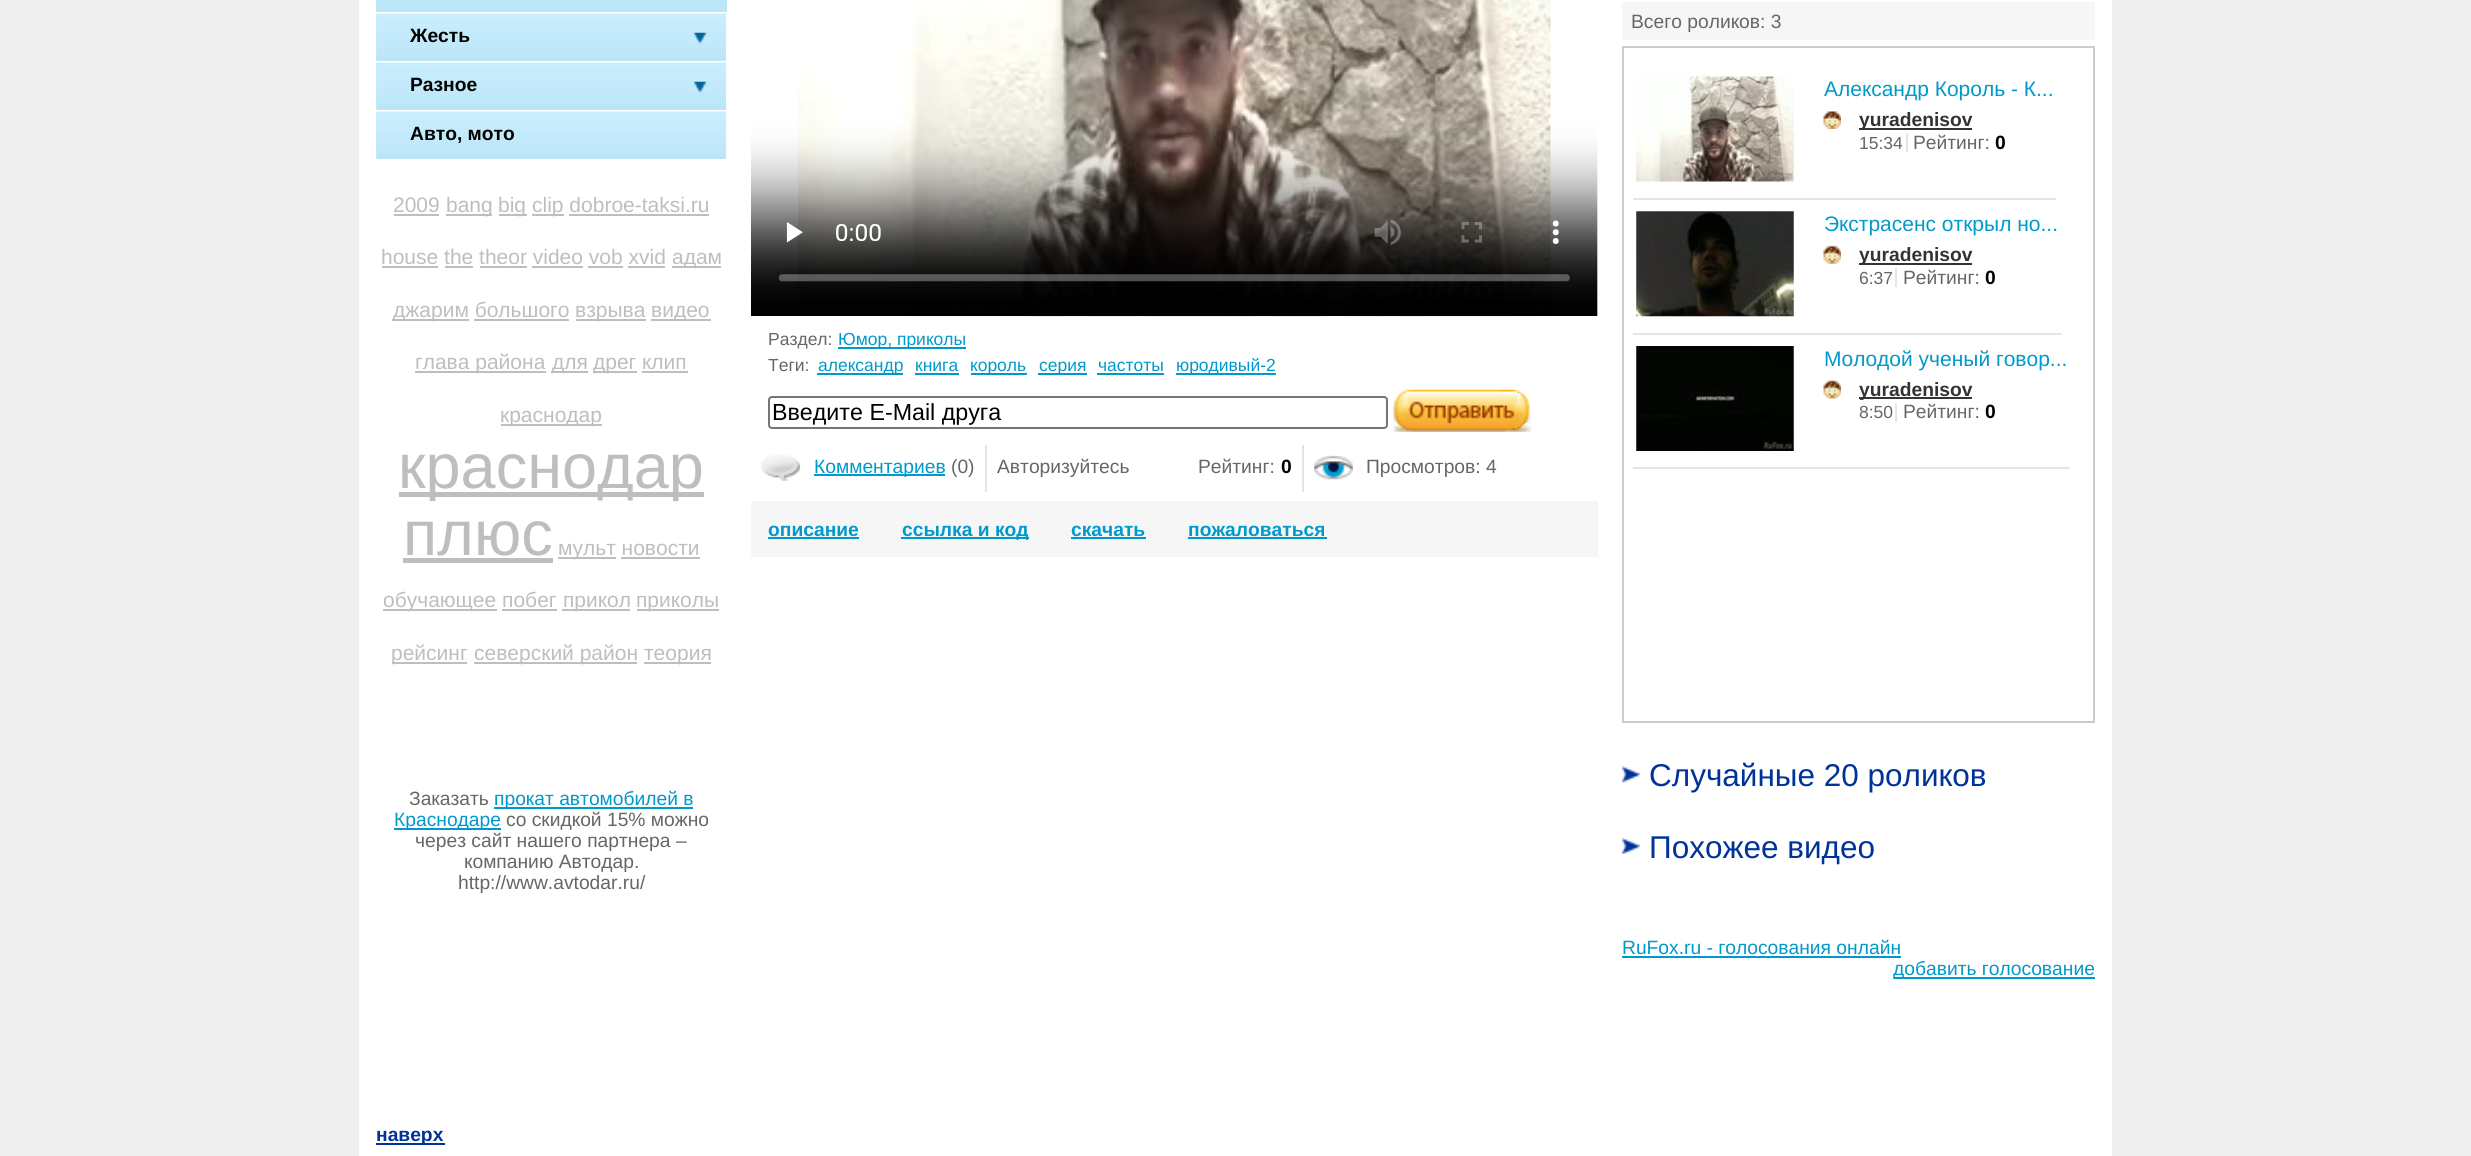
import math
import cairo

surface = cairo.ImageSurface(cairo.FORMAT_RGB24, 2471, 1156)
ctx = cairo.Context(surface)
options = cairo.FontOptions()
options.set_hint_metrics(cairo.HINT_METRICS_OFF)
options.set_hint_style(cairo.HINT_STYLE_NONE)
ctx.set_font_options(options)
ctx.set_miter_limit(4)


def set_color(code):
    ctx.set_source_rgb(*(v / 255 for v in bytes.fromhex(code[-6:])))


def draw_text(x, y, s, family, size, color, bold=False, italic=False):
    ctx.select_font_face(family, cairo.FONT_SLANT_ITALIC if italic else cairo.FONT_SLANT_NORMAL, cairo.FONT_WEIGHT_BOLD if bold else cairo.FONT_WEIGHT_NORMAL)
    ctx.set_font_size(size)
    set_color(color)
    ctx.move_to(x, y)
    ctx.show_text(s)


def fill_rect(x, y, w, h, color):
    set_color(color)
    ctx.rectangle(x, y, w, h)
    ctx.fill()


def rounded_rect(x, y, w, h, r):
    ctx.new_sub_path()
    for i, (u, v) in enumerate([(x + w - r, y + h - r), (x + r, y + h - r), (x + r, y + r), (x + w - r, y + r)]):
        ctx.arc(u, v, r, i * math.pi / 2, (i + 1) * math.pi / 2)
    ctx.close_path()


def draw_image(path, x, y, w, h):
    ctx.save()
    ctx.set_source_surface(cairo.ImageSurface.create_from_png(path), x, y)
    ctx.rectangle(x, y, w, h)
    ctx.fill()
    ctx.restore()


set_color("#eeeeee")
ctx.paint()
fill_rect(359, 0, 1753, 1156, "#ffffff")
fill_rect(376, 0, 351, 12, "#bde6f8")
fill_rect(376, 14, 350, 47, "#c9eefe")
draw_image("assets/img1.png", 376, 13, 351, 48)
draw_image("assets/img2.png", 693, 32, 14, 12)
draw_text(410, 42, "Жесть", "Liberation Sans", 19.25, "#000000", bold=True)
fill_rect(376, 63, 350, 47, "#c9eefe")
draw_image("assets/img1.png", 376, 62, 351, 48)
draw_image("assets/img2.png", 693, 81, 14, 12)
draw_text(410, 91, "Разное", "Liberation Sans", 19.25, "#000000", bold=True)
fill_rect(376, 112, 350, 47, "#c9eefe")
draw_image("assets/img1.png", 376, 111, 351, 48)
draw_text(410, 140, "Авто, мото", "Liberation Sans", 19.25, "#000000", bold=True)
draw_text(393, 212, "2009", "Liberation Sans", 21, "#bebebe")
fill_rect(394, 214, 45, 2, "#bebebe")
fill_rect(446, 214, 46, 2, "#bebebe")
draw_text(446, 212, "bang", "Liberation Sans", 21, "#bebebe")
fill_rect(499, 214, 28, 2, "#bebebe")
draw_text(498, 212, "big", "Liberation Sans", 21, "#bebebe")
fill_rect(532, 214, 32, 2, "#bebebe")
draw_text(532, 212, "clip dobroe-taksi.ru", "Liberation Sans", 21, "#bebebe")
fill_rect(569, 214, 140, 2, "#bebebe")
draw_text(381, 264, "house the theor video vob xvid", "Liberation Sans", 21, "#bebebe")
fill_rect(382, 266, 56, 2, "#bebebe")
fill_rect(672, 266, 49, 2, "#bebebe")
draw_text(672, 264, "адам", "Liberation Sans", 21, "#bebebe")
fill_rect(445, 266, 28, 2, "#bebebe")
fill_rect(480, 266, 47, 2, "#bebebe")
fill_rect(532, 266, 51, 2, "#bebebe")
fill_rect(588, 266, 35, 2, "#bebebe")
fill_rect(628, 266, 37, 2, "#bebebe")
fill_rect(392, 319, 77, 2, "#bebebe")
draw_text(393, 317, "джарим большого", "Liberation Sans", 21, "#bebebe")
fill_rect(576, 319, 70, 2, "#bebebe")
draw_text(575, 317, "взрыва", "Liberation Sans", 21, "#bebebe")
fill_rect(651, 319, 60, 2, "#bebebe")
draw_text(651, 317, "видео", "Liberation Sans", 21, "#bebebe")
fill_rect(474, 319, 95, 2, "#bebebe")
fill_rect(415, 371, 131, 2, "#bebebe")
draw_text(415, 369, "глава района", "Liberation Sans", 21, "#bebebe")
fill_rect(551, 371, 37, 2, "#bebebe")
draw_text(552, 369, "для", "Liberation Sans", 21, "#bebebe")
fill_rect(593, 371, 44, 2, "#bebebe")
draw_text(593, 369, "дрег клип", "Liberation Sans", 21, "#bebebe")
fill_rect(642, 371, 46, 2, "#bebebe")
fill_rect(501, 424, 101, 2, "#bebebe")
draw_text(500, 422, "краснодар", "Liberation Sans", 21, "#bebebe")
fill_rect(399, 492, 305, 5, "#bebebe")
draw_text(398, 488, "краснодар", "Liberation Sans", 63, "#bebebe")
draw_text(403, 555, "плюс", "Liberation Sans", 63, "#bebebe")
fill_rect(403, 558, 150, 5, "#bebebe")
fill_rect(558, 557, 58, 2, "#bebebe")
draw_text(558, 555, "мульт новости", "Liberation Sans", 21, "#bebebe")
fill_rect(621, 557, 79, 2, "#bebebe")
fill_rect(383, 609, 114, 2, "#bebebe")
draw_text(383, 607, "обучающее побег", "Liberation Sans", 21, "#bebebe")
fill_rect(562, 609, 68, 2, "#bebebe")
draw_text(563, 607, "прикол", "Liberation Sans", 21, "#bebebe")
fill_rect(637, 609, 82, 2, "#bebebe")
draw_text(636, 607, "приколы", "Liberation Sans", 21, "#bebebe")
fill_rect(502, 609, 55, 2, "#bebebe")
fill_rect(392, 662, 75, 2, "#bebebe")
draw_text(391, 660, "рейсинг", "Liberation Sans", 21, "#bebebe")
fill_rect(474, 662, 163, 2, "#bebebe")
draw_text(474, 660, "северский район", "Liberation Sans", 21, "#bebebe")
fill_rect(644, 662, 67, 2, "#bebebe")
draw_text(644, 660, "теория", "Liberation Sans", 21, "#bebebe")
draw_text(409, 805, "Заказать", "Liberation Sans", 19.25, "#666666")
fill_rect(494, 807, 199, 2, "#0099cc")
draw_text(494, 805, "прокат автомобилей в", "Liberation Sans", 19.25, "#0099cc")
fill_rect(394, 828, 107, 2, "#0099cc")
draw_text(394, 826, "Краснодаре", "Liberation Sans", 19.25, "#0099cc")
draw_text(506, 826, "со скидкой 15% можно", "Liberation Sans", 19.25, "#666666")
draw_text(415, 847, "через сайт нашего партнера –", "Liberation Sans", 19.25, "#666666")
draw_text(464, 868, "компанию Автодар.", "Liberation Sans", 19.25, "#666666")
draw_text(458, 889, "http://www.avtodar.ru/", "Liberation Sans", 19.25, "#666666")
draw_image("assets/img3.png", 751, 0, 847, 317)
draw_text(768, 345, "Раздел:", "Liberation Sans", 17.5, "#666666")
fill_rect(838, 347, 128, 2, "#0099cc")
draw_text(838, 345, "Юмор, приколы", "Liberation Sans", 17.5, "#0099cc")
draw_text(768, 371, "Теги:", "Liberation Sans", 17.5, "#666666")
fill_rect(817, 373, 86, 2, "#0099cc")
draw_text(818, 371, "александр", "Liberation Sans", 17.5, "#0099cc")
draw_text(915, 371, "книга", "Liberation Sans", 17.5, "#0099cc")
fill_rect(915, 373, 44, 2, "#0099cc")
fill_rect(971, 373, 56, 2, "#0099cc")
draw_text(970, 371, "король", "Liberation Sans", 17.5, "#0099cc")
fill_rect(1038, 373, 49, 2, "#0099cc")
draw_text(1039, 371, "серия", "Liberation Sans", 17.5, "#0099cc")
draw_text(1098, 371, "частоты", "Liberation Sans", 17.5, "#0099cc")
fill_rect(1097, 373, 67, 2, "#0099cc")
fill_rect(1176, 373, 100, 2, "#0099cc")
draw_text(1176, 371, "юродивый-2", "Liberation Sans", 17.5, "#0099cc")
rounded_rect(769, 397, 618, 31, 3)
set_color("#767676")
ctx.stroke()
draw_text(772, 420, "Введите E-Mail друга", "Liberation Sans", 23.25, "#000000")
draw_image("assets/img4.png", 1393, 389, 138, 43)
fill_rect(985, 445, 2, 47, "#e5e5e4")
draw_image("assets/img5.png", 761, 454, 39, 27)
fill_rect(814, 474, 131, 2, "#0099cc")
draw_text(814, 473, "Комментариев", "Liberation Sans", 19.25, "#0099cc")
draw_text(951, 473, "(0)", "Liberation Sans", 19.25, "#666666")
fill_rect(1302, 445, 2, 47, "#e5e5e4")
draw_text(997, 473, "Авторизуйтесь", "Liberation Sans", 19.25, "#666666")
draw_text(1198, 473, "Рейтинг:", "Liberation Sans", 19.25, "#666666")
draw_text(1281, 473, "0", "Liberation Sans", 19.25, "#000000", bold=True)
draw_image("assets/img6.png", 1314, 455, 39, 25)
draw_text(1366, 473, "Просмотров: 4", "Liberation Sans", 19.25, "#666666")
fill_rect(751, 501, 847, 56, "#f6f6f6")
draw_text(768, 536, "описание", "Liberation Sans", 19.25, "#0099cc", bold=True)
fill_rect(768, 537, 91, 2, "#0099cc")
fill_rect(901, 537, 128, 2, "#0099cc")
draw_text(902, 536, "ссылка и код", "Liberation Sans", 19.25, "#0099cc", bold=True)
draw_text(1071, 536, "скачать", "Liberation Sans", 19.25, "#0099cc", bold=True)
fill_rect(1071, 537, 75, 2, "#0099cc")
draw_text(1188, 536, "пожаловаться", "Liberation Sans", 19.25, "#0099cc", bold=True)
fill_rect(1188, 537, 139, 2, "#0099cc")
fill_rect(1622, 2, 473, 38, "#f6f6f6")
draw_text(1631, 28, "Всего роликов: 3", "Liberation Sans", 19.25, "#666666")
ctx.rectangle(1623, 47, 471, 675)
set_color("#cccccc")
ctx.stroke()
fill_rect(1633, 198, 423, 2, "#e5e5e4")
draw_image("assets/img7.png", 1636, 76, 158, 106)
draw_text(1824, 96, "Александр Король - К...", "Liberation Sans", 21, "#0099cc")
draw_image("assets/img8.png", 1823, 111, 18, 18)
fill_rect(1859, 128, 113, 2, "#333333")
draw_text(1859, 126, "yuradenisov", "Liberation Sans", 19.25, "#333333", bold=True)
draw_text(1859, 149, "15:34", "Liberation Sans", 17.5, "#666666")
fill_rect(1906, 133, 2, 19, "#e5e5e4")
draw_text(1913, 149, "Рейтинг:", "Liberation Sans", 19.25, "#666666")
draw_text(1995, 149, "0", "Liberation Sans", 19.25, "#000000", bold=True)
fill_rect(1633, 333, 429, 2, "#e5e5e4")
draw_image("assets/img9.png", 1636, 211, 158, 106)
draw_text(1824, 231, "Экстрасенс открыл но...", "Liberation Sans", 21, "#0099cc")
draw_image("assets/img10.png", 1823, 245, 18, 19)
fill_rect(1859, 263, 113, 2, "#333333")
draw_text(1859, 261, "yuradenisov", "Liberation Sans", 19.25, "#333333", bold=True)
draw_text(1859, 284, "6:37", "Liberation Sans", 17.5, "#666666")
fill_rect(1895, 268, 2, 19, "#e5e5e4")
draw_text(1903, 284, "Рейтинг:", "Liberation Sans", 19.25, "#666666")
draw_text(1985, 284, "0", "Liberation Sans", 19.25, "#000000", bold=True)
fill_rect(1633, 467, 437, 2, "#e5e5e4")
draw_image("assets/img11.png", 1636, 346, 158, 105)
draw_text(1824, 366, "Молодой ученый говор...", "Liberation Sans", 21, "#0099cc")
draw_image("assets/img12.png", 1823, 380, 18, 19)
fill_rect(1859, 397, 113, 2, "#333333")
draw_text(1859, 396, "yuradenisov", "Liberation Sans", 19.25, "#333333", bold=True)
draw_text(1859, 418, "8:50", "Liberation Sans", 17.5, "#666666")
fill_rect(1895, 403, 2, 19, "#e5e5e4")
draw_text(1903, 418, "Рейтинг:", "Liberation Sans", 19.25, "#666666")
draw_text(1985, 418, "0", "Liberation Sans", 19.25, "#000000", bold=True)
draw_image("assets/img13.png", 1622, 766, 18, 17)
draw_text(1649, 786, "Случайные 20 роликов", "Liberation Sans", 31.5, "#003399")
draw_image("assets/img14.png", 1622, 837, 18, 17)
draw_text(1649, 858, "Похожее видео", "Liberation Sans", 31.5, "#003399")
draw_text(1622, 954, "RuFox.ru - голосования онлайн", "Liberation Sans", 19.25, "#0099cc")
fill_rect(1622, 956, 279, 2, "#0099cc")
fill_rect(1894, 977, 201, 2, "#0099cc")
draw_text(1893, 975, "добавить голосование", "Liberation Sans", 19.25, "#0099cc")
fill_rect(376, 1143, 69, 2, "#003399")
draw_text(376, 1141, "наверх", "Liberation Sans", 19.25, "#003399", bold=True)
surface.write_to_png("output.png")
